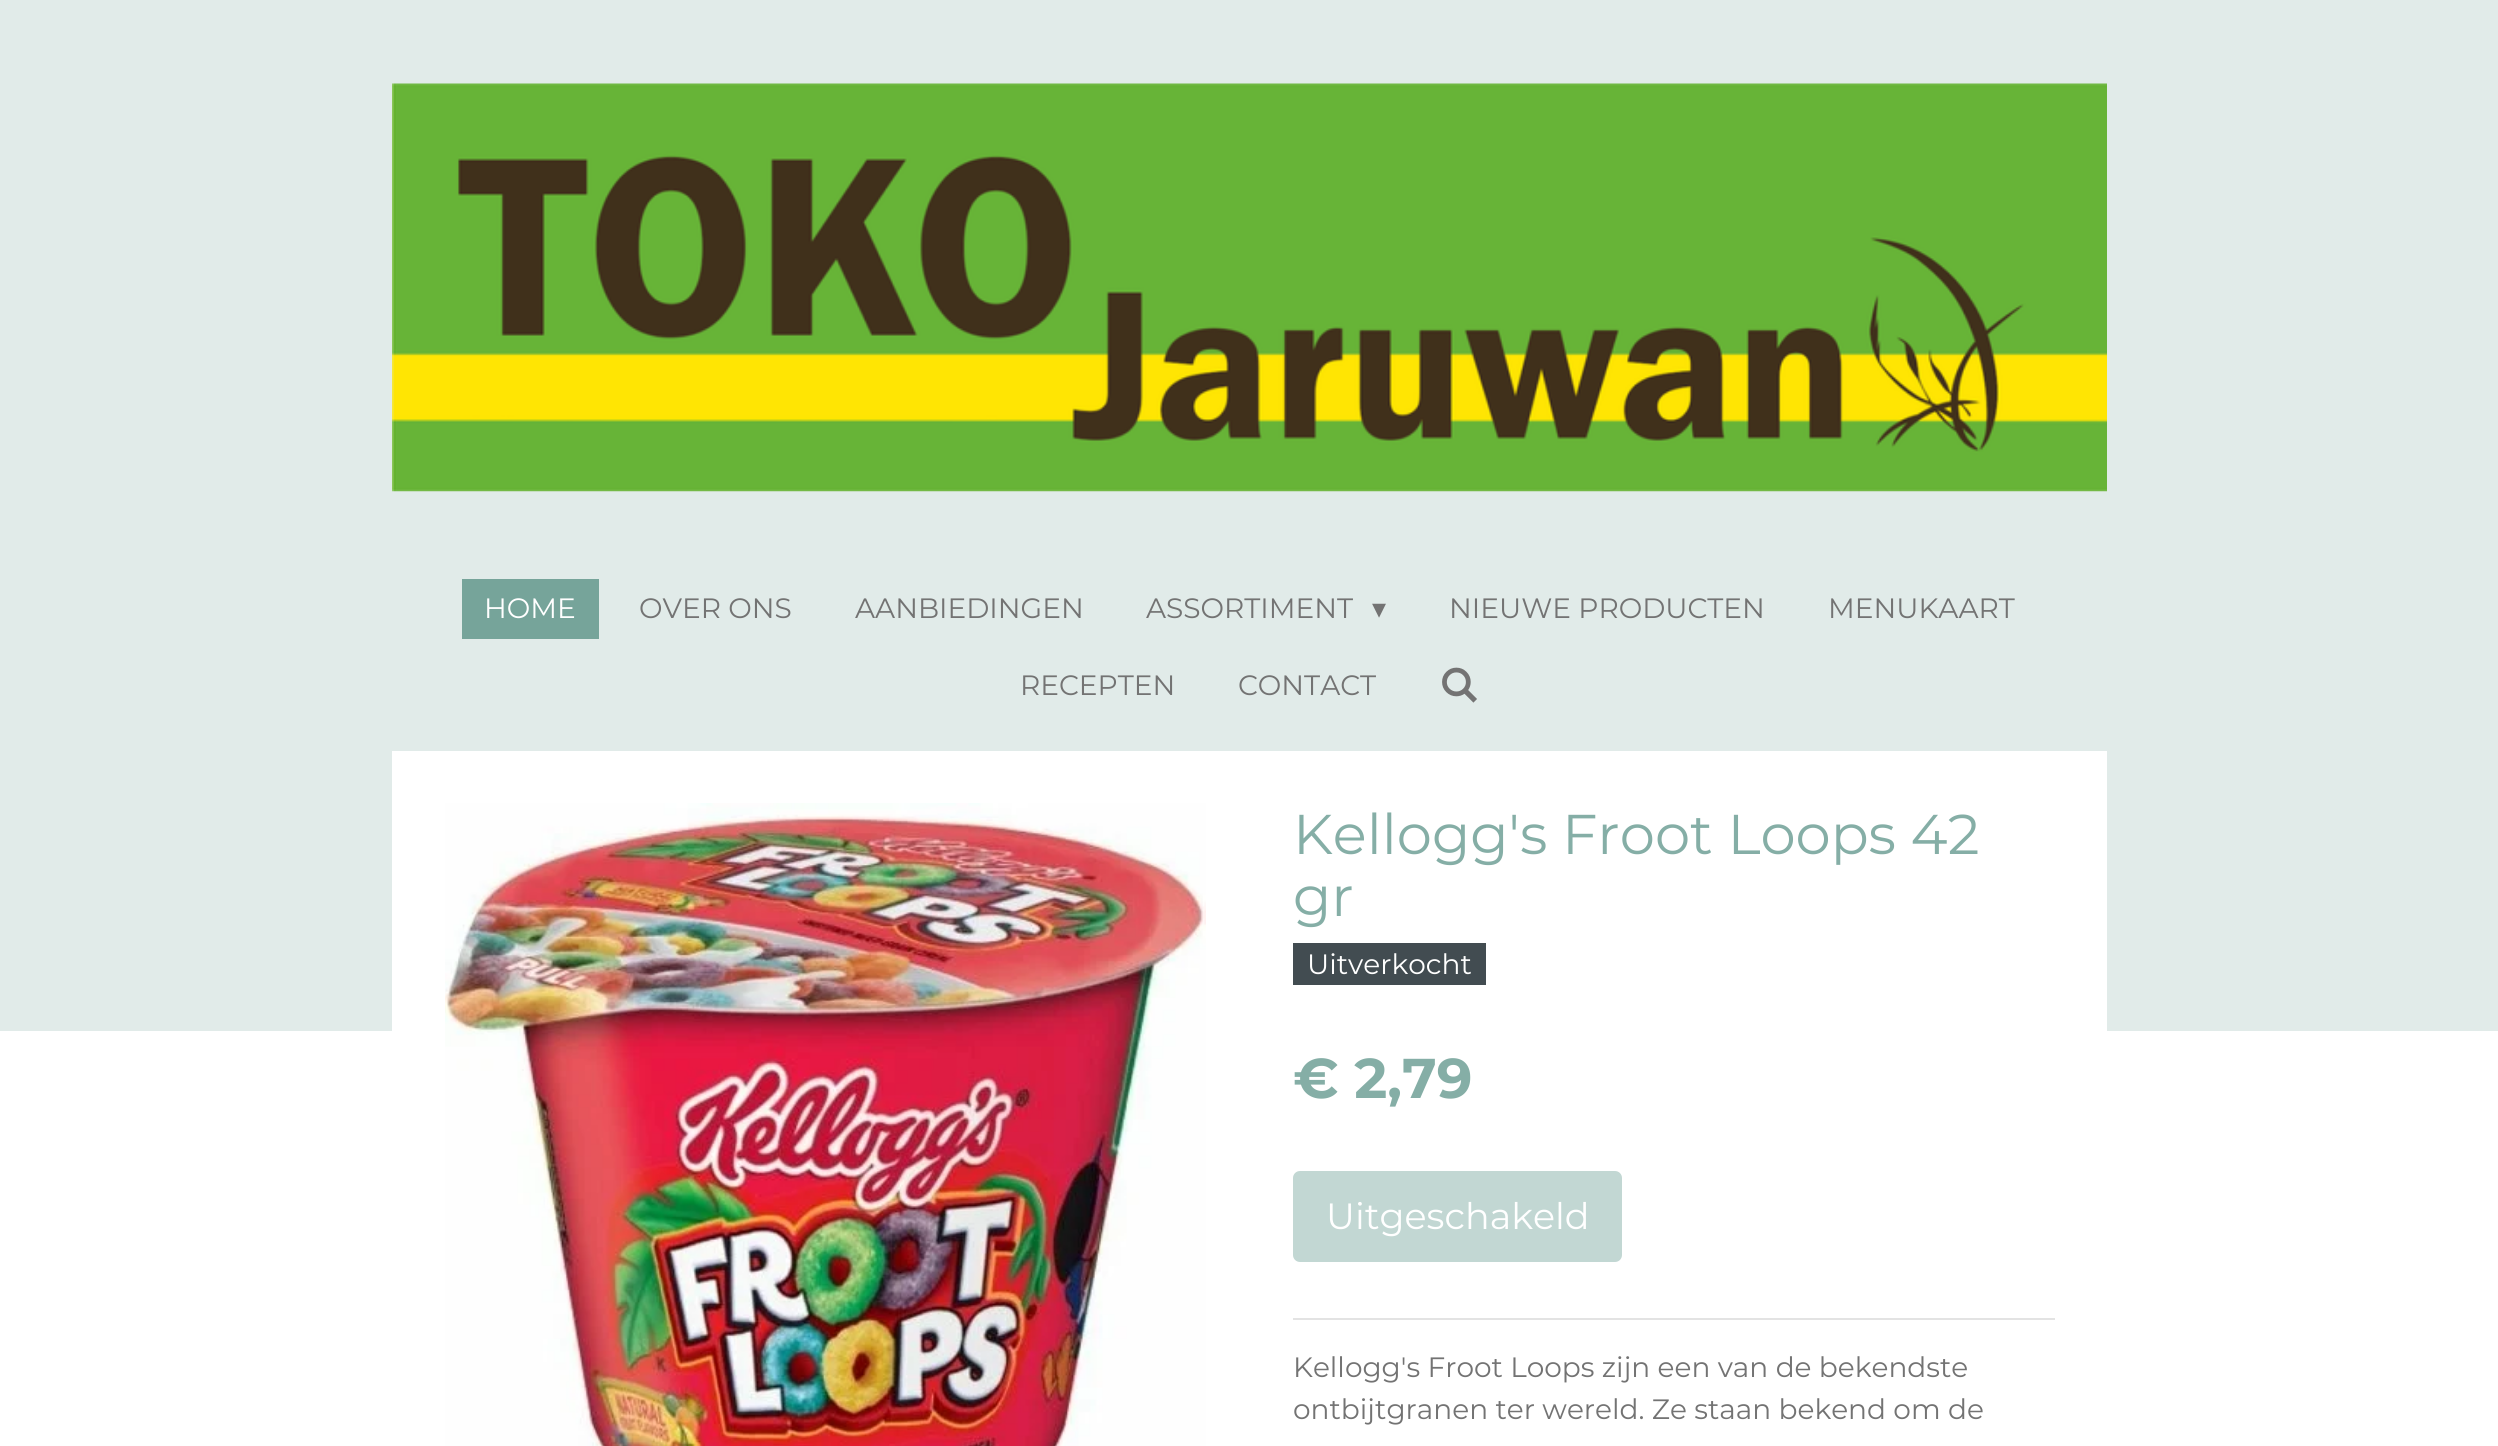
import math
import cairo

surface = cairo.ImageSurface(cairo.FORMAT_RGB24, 2498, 1446)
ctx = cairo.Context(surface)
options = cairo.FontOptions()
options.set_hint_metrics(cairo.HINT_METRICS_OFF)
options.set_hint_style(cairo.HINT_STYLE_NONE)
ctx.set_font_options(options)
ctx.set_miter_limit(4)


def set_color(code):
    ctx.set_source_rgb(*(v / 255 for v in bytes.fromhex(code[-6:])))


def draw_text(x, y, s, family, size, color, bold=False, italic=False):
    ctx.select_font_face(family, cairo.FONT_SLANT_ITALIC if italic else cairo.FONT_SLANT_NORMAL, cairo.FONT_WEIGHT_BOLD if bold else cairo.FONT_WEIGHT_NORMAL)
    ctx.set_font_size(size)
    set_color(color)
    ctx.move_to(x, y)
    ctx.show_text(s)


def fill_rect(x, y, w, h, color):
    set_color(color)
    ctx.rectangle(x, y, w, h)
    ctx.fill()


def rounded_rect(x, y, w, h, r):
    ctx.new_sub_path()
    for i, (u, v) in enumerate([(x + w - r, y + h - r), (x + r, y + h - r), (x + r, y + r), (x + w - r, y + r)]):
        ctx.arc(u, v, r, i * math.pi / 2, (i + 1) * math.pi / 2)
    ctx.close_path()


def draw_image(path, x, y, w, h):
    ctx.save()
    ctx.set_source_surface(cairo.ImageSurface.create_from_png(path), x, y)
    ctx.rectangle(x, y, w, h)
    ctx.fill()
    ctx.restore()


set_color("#ffffff")
ctx.paint()
fill_rect(0, 0, 2498, 1031, "#e1ebe9")
draw_image("assets/img1.png", 392, 83, 1715, 409)
fill_rect(462, 579, 137, 60, "#76a49a")
draw_text(484, 618, "HOME", "Montserrat", 28, "#ffffff")
draw_text(639, 618, "OVER ONS", "Montserrat", 28, "#737373")
draw_text(855, 618, "AANBIEDINGEN", "Montserrat", 28, "#737373")
draw_text(1146, 618, "ASSORTIMENT", "Montserrat", 28, "#737373")
draw_text(1372, 618, "▾", "DejaVu Sans", 28, "#737373")
draw_text(1449, 618, "NIEUWE PRODUCTEN", "Montserrat", 28, "#737373")
draw_text(1828, 618, "MENUKAART", "Montserrat", 28, "#737373")
draw_text(1020, 695, "RECEPTEN", "Montserrat", 28, "#737373")
draw_text(1238, 695, "CONTACT", "Montserrat", 28, "#737373")
draw_image("assets/img2.png", 1442, 667, 35, 36)
fill_rect(392, 751, 1715, 280, "#ffffff")
draw_image("assets/img3.png", 445, 803, 761, 643)
draw_text(1293, 854, "Kellogg's Froot Loops 42", "Montserrat", 56, "#85aea6")
draw_text(1293, 916, "gr", "Montserrat", 56, "#85aea6")
fill_rect(1293, 943, 193, 42, "#424c51")
draw_text(1307, 974, "Uitverkocht", "Montserrat", 28, "#ffffff")
draw_text(1293, 1098, "€ 2,79", "Montserrat", 56, "#85aea6", bold=True)
set_color("#c2d7d3")
rounded_rect(1293, 1171, 329, 91, 7)
ctx.fill()
draw_text(1326, 1229, "Uitgeschakeld", "Montserrat", 36.5, "#ffffff")
fill_rect(1293, 1318, 762, 2, "#e3e3e3")
draw_text(1293, 1377, "Kellogg's Froot Loops zijn een van de bekendste", "Montserrat", 28, "#737373")
draw_text(1293, 1419, "ontbijtgranen ter wereld. Ze staan bekend om de", "Montserrat", 28, "#737373")
surface.write_to_png("output.png")
